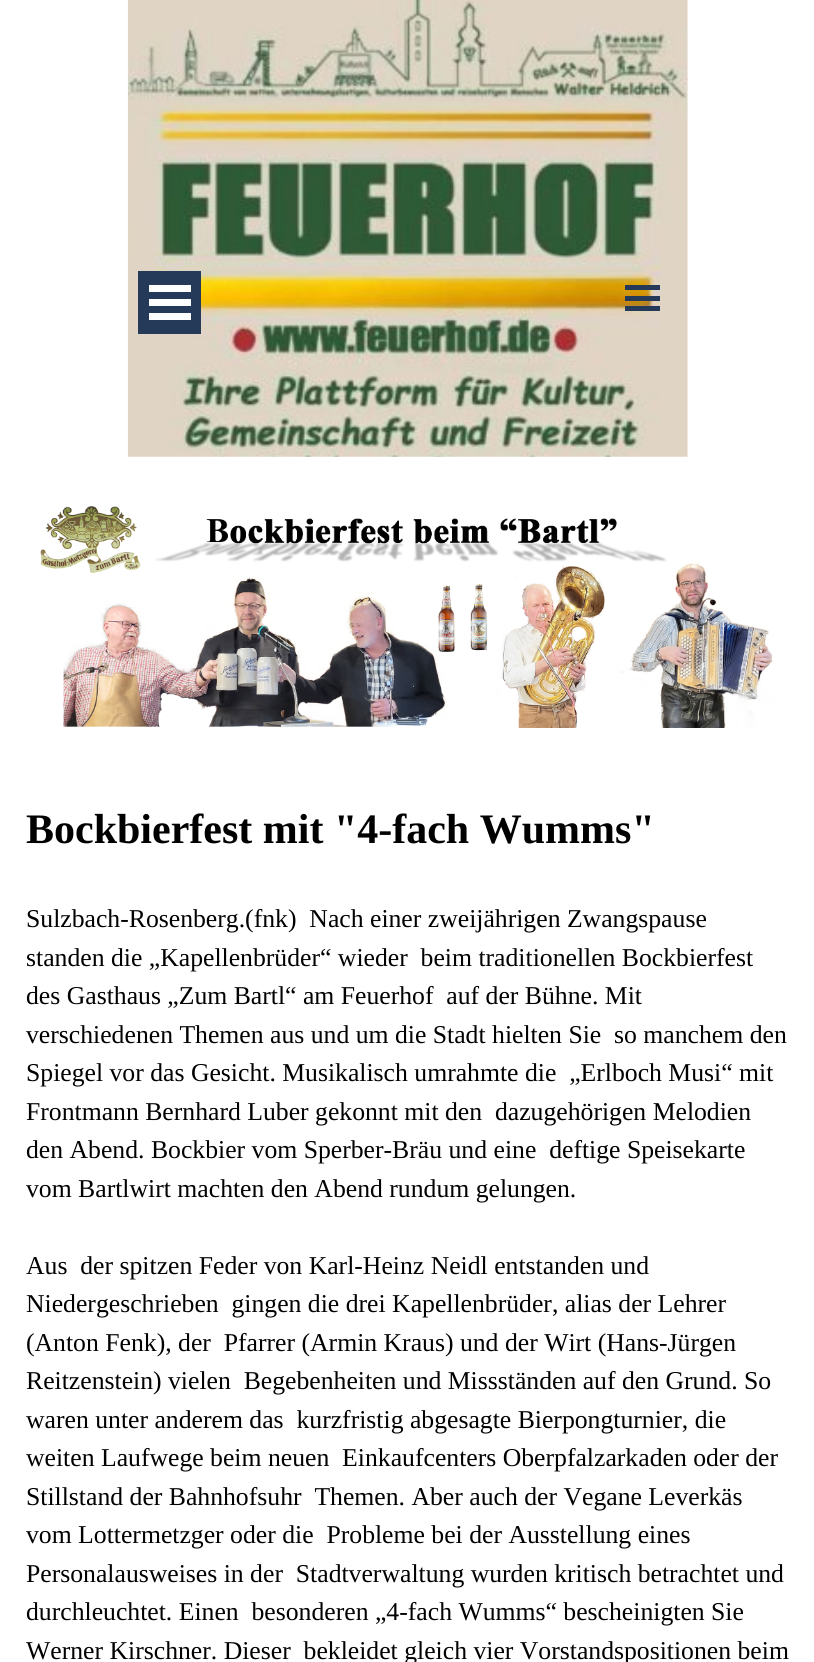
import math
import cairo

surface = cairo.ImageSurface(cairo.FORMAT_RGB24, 814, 1662)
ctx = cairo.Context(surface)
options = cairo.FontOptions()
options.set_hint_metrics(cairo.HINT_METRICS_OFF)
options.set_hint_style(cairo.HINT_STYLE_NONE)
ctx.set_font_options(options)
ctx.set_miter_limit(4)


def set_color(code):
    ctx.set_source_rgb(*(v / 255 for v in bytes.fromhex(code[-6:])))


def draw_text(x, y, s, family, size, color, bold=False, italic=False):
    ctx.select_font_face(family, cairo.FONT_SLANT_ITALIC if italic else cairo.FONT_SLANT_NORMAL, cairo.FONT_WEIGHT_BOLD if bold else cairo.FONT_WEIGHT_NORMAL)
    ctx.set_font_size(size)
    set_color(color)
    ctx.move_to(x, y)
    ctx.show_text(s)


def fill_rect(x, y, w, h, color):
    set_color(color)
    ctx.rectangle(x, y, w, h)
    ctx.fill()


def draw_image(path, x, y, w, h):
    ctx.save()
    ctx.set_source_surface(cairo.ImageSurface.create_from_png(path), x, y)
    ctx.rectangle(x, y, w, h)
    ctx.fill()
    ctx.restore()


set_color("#ffffff")
ctx.paint()
draw_image("assets/img1.png", 127, 0, 561, 457)
fill_rect(138, 271, 63, 63, "#253a58")
fill_rect(149, 285, 42, 7, "#ffffff")
fill_rect(149, 299, 42, 7, "#ffffff")
fill_rect(149, 313, 42, 7, "#ffffff")
fill_rect(625, 285, 35, 5, "#253a58")
fill_rect(625, 296, 35, 5, "#253a58")
fill_rect(625, 306, 35, 5, "#253a58")
draw_image("assets/img2.png", 40, 506, 734, 222)
draw_text(26, 843, "Bockbierfest mit \"4-fach Wumms\"", "Liberation Serif", 42, "#000000", bold=True)
draw_text(26, 927, "Sulzbach-Rosenberg.(fnk)  Nach einer zweijährigen Zwangspause", "Liberation Serif", 25.7, "#000000")
draw_text(26, 966, "standen die „Kapellenbrüder“ wieder  beim traditionellen Bockbierfest", "Liberation Serif", 25.7, "#000000")
draw_text(26, 1004, "des Gasthaus „Zum Bartl“ am Feuerhof  auf der Bühne. Mit", "Liberation Serif", 25.7, "#000000")
draw_text(26, 1043, "verschiedenen Themen aus und um die Stadt hielten Sie  so manchem den", "Liberation Serif", 25.7, "#000000")
draw_text(26, 1081, "Spiegel vor das Gesicht. Musikalisch umrahmte die  „Erlboch Musi“ mit", "Liberation Serif", 25.7, "#000000")
draw_text(26, 1120, "Frontmann Bernhard Luber gekonnt mit den  dazugehörigen Melodien", "Liberation Serif", 25.7, "#000000")
draw_text(26, 1158, "den Abend. Bockbier vom Sperber-Bräu und eine  deftige Speisekarte", "Liberation Serif", 25.7, "#000000")
draw_text(26, 1197, "vom Bartlwirt machten den Abend rundum gelungen.", "Liberation Serif", 25.7, "#000000")
draw_text(26, 1274, "Aus  der spitzen Feder von Karl-Heinz Neidl entstanden und", "Liberation Serif", 25.7, "#000000")
draw_text(26, 1312, "Niedergeschrieben  gingen die drei Kapellenbrüder, alias der Lehrer", "Liberation Serif", 25.7, "#000000")
draw_text(26, 1351, "(Anton Fenk), der  Pfarrer (Armin Kraus) und der Wirt (Hans-Jürgen", "Liberation Serif", 25.7, "#000000")
draw_text(26, 1389, "Reitzenstein) vielen  Begebenheiten und Missständen auf den Grund. So", "Liberation Serif", 25.7, "#000000")
draw_text(26, 1428, "waren unter anderem das  kurzfristig abgesagte Bierpongturnier, die", "Liberation Serif", 25.7, "#000000")
draw_text(26, 1466, "weiten Laufwege beim neuen  Einkaufcenters Oberpfalzarkaden oder der", "Liberation Serif", 25.7, "#000000")
draw_text(26, 1505, "Stillstand der Bahnhofsuhr  Themen. Aber auch der Vegane Leverkäs", "Liberation Serif", 25.7, "#000000")
draw_text(26, 1543, "vom Lottermetzger oder die  Probleme bei der Ausstellung eines", "Liberation Serif", 25.7, "#000000")
draw_text(26, 1582, "Personalausweises in der  Stadtverwaltung wurden kritisch betrachtet und", "Liberation Serif", 25.7, "#000000")
draw_text(26, 1620, "durchleuchtet. Einen  besonderen „4-fach Wumms“ bescheinigten Sie", "Liberation Serif", 25.7, "#000000")
draw_text(26, 1659, "Werner Kirschner. Dieser  bekleidet gleich vier Vorstandspositionen beim", "Liberation Serif", 25.7, "#000000")
surface.write_to_png("output.png")
